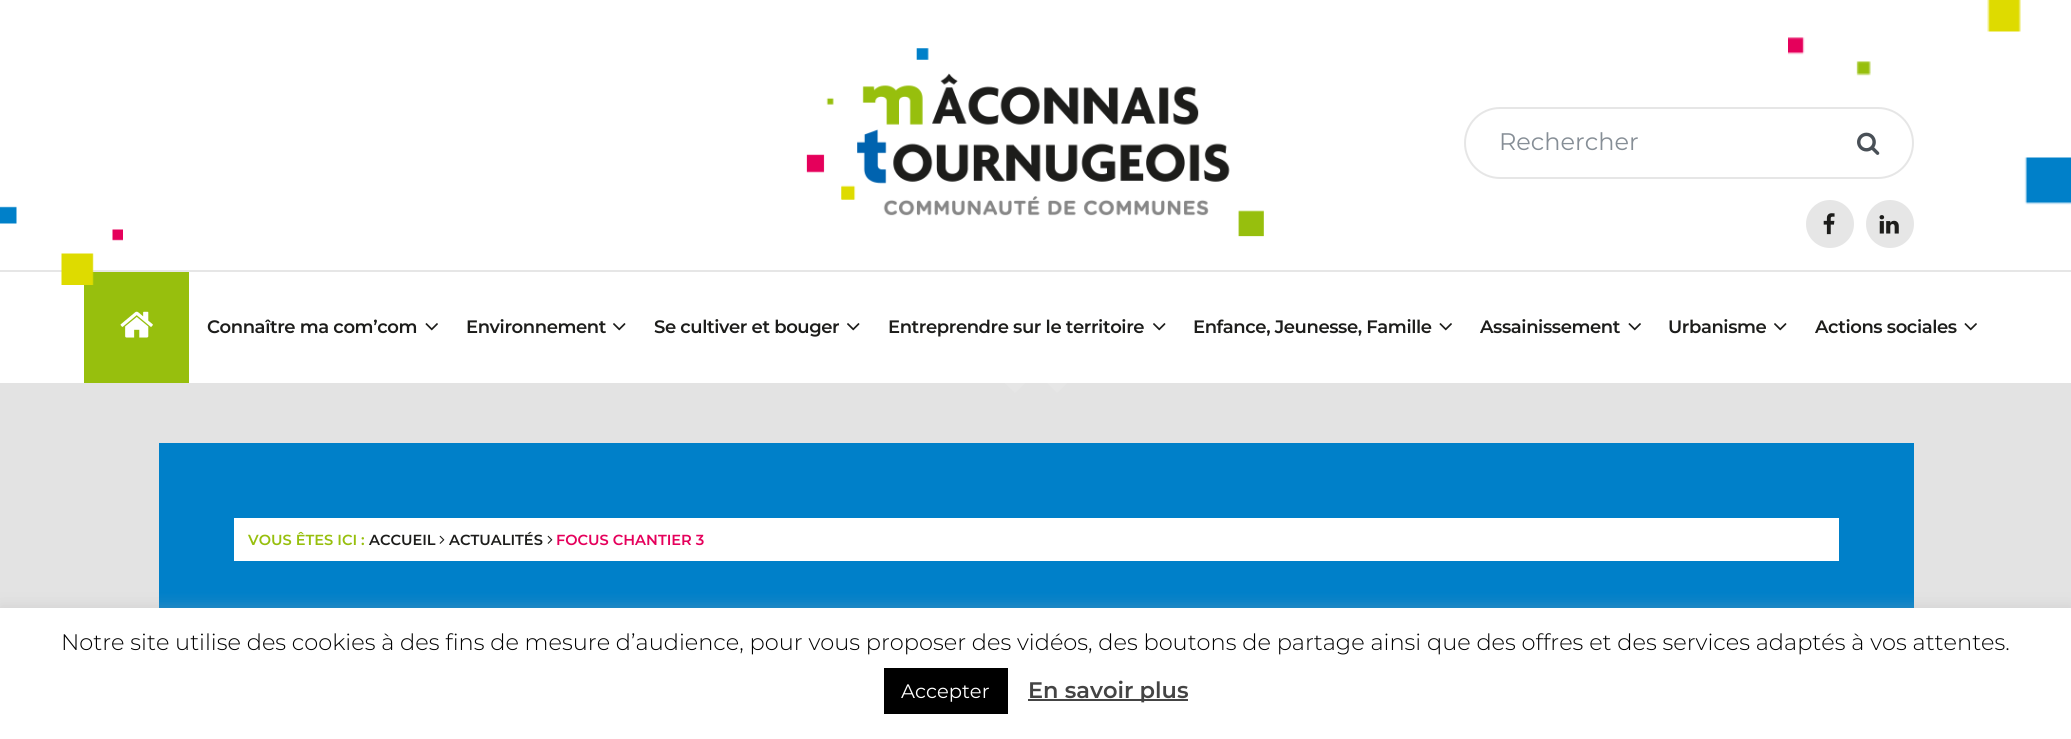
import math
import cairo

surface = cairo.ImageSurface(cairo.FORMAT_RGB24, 2071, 739)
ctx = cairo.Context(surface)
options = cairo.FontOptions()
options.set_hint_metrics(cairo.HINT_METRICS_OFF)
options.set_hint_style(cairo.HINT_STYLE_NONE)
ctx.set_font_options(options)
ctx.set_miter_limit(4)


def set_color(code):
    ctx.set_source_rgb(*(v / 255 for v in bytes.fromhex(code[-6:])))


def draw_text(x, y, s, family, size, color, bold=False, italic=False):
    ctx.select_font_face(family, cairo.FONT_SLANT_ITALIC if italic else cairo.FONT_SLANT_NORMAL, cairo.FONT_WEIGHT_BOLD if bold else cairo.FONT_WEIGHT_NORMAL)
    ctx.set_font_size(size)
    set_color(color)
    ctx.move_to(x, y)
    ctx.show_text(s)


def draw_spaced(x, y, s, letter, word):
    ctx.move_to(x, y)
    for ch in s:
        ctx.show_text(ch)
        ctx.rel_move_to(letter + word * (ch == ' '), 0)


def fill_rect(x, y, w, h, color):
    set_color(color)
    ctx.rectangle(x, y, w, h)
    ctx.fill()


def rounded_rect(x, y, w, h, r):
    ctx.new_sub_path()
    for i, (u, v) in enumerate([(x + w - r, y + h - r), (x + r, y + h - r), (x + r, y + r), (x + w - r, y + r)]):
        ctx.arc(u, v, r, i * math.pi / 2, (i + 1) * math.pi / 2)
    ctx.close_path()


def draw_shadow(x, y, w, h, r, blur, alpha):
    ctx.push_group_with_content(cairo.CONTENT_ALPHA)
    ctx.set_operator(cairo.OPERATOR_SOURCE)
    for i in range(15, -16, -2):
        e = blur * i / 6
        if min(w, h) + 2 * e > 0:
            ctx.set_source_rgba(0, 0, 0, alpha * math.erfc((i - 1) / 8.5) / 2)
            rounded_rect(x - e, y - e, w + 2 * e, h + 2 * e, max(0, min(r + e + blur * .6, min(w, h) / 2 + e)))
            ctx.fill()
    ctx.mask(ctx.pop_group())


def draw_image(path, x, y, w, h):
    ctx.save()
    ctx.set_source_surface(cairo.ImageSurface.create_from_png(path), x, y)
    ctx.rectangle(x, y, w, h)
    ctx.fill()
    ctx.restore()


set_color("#e3e3e3")
ctx.paint()
set_color("#e6e6e6")
ctx.new_path()
ctx.move_to(1080, 370)
ctx.line_to(1057, 393)
ctx.line_to(1034, 370)
ctx.line_to(1057, 346)
ctx.close_path()
ctx.fill()
ctx.new_path()
ctx.move_to(991, 370)
ctx.line_to(1015, 346)
ctx.line_to(1038, 370)
ctx.line_to(1015, 393)
ctx.close_path()
ctx.fill()
fill_rect(0, 0, 2071, 383, "#ffffff")
draw_image("assets/img1.png", 806, 48, 458, 189)
draw_image("assets/img5.png", 1788, 0, 283, 205)
rounded_rect(1465, 108, 448, 70, 35)
set_color("#e6e6e6")
ctx.stroke()
draw_text(1499, 150, "Rechercher", "Montserrat", 24, "#868e96")
draw_image("assets/img2.png", 1857, 132, 23, 23)
set_color("#e6e6e6")
ctx.arc(1830, 224, 24, 0, 2 * math.pi)
ctx.fill()
draw_image("assets/img3.png", 1823, 213, 12, 22)
ctx.arc(1890, 224, 24, 0, 2 * math.pi)
ctx.fill()
draw_image("assets/img4.png", 1879, 215, 20, 19)
fill_rect(0, 270, 2071, 2, "#e6e6e6")
fill_rect(84, 272, 105, 111, "#97bf0d")
draw_image("assets/img6.png", 0, 206, 123, 79)
draw_image("assets/img7.png", 120, 311, 33, 27)
ctx.select_font_face("Montserrat SemiBold")
ctx.set_font_size(18)
set_color("#1d1d1b")
draw_spaced(207, 333, "Connaître ma com’com", -0.4, 0)
draw_image("assets/img8.png", 425, 323, 13, 8)
draw_spaced(466, 333, "Environnement", -0.4, 0)
draw_image("assets/img9.png", 613, 323, 13, 8)
draw_spaced(654, 333, "Se cultiver et bouger", -0.4, 0)
draw_image("assets/img9.png", 847, 323, 13, 8)
draw_spaced(888, 333, "Entreprendre sur le territoire", -0.4, 0)
draw_image("assets/img9.png", 1153, 323, 13, 8)
draw_spaced(1193, 333, "Enfance, Jeunesse, Famille", -0.4, 0)
draw_image("assets/img8.png", 1439, 323, 13, 8)
draw_spaced(1480, 333, "Assainissement", -0.4, 0)
draw_image("assets/img8.png", 1628, 323, 13, 8)
draw_spaced(1668, 333, "Urbanisme", -0.4, 0)
draw_image("assets/img9.png", 1774, 323, 13, 8)
draw_spaced(1815, 333, "Actions sociales", -0.4, 0)
draw_image("assets/img8.png", 1964, 323, 13, 8)
fill_rect(159, 443, 1755, 165, "#0080c9")
fill_rect(234, 518, 1605, 43, "#ffffff")
draw_text(248, 545, "VOUS ÊTES ICI :", "Montserrat SemiBold", 14.6, "#97bf0d")
draw_text(369, 545, "ACCUEIL", "Montserrat SemiBold", 14.6, "#1d1d1b")
draw_image("assets/img10.png", 439, 535, 6, 9)
draw_text(449, 545, "ACTUALITÉS", "Montserrat SemiBold", 14.6, "#1d1d1b")
draw_image("assets/img10.png", 547, 535, 6, 9)
draw_text(556, 545, "FOCUS CHANTIER 3", "Montserrat SemiBold", 14.6, "#e5005b")
set_color("#acabab")
draw_shadow(0, 606, 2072, 132, 0, 7.5, 0.3)
fill_rect(0, 608, 2071, 131, "#ffffff")
draw_text(61, 650, "Notre site utilise des cookies à des fins de mesure d’audience, pour vous proposer des vidéos, des boutons de partage ainsi que des offres et des services adaptés à vos attentes.", "Montserrat Light", 22.5, "#000000")
fill_rect(884, 668, 124, 46, "#000000")
draw_text(901, 698, "Accepter", "Montserrat", 19.5, "#ffffff")
fill_rect(1028, 699, 160, 2, "#444444")
draw_text(1028, 698, "En savoir plus", "Montserrat SemiBold", 22.5, "#444444")
surface.write_to_png("output.png")
